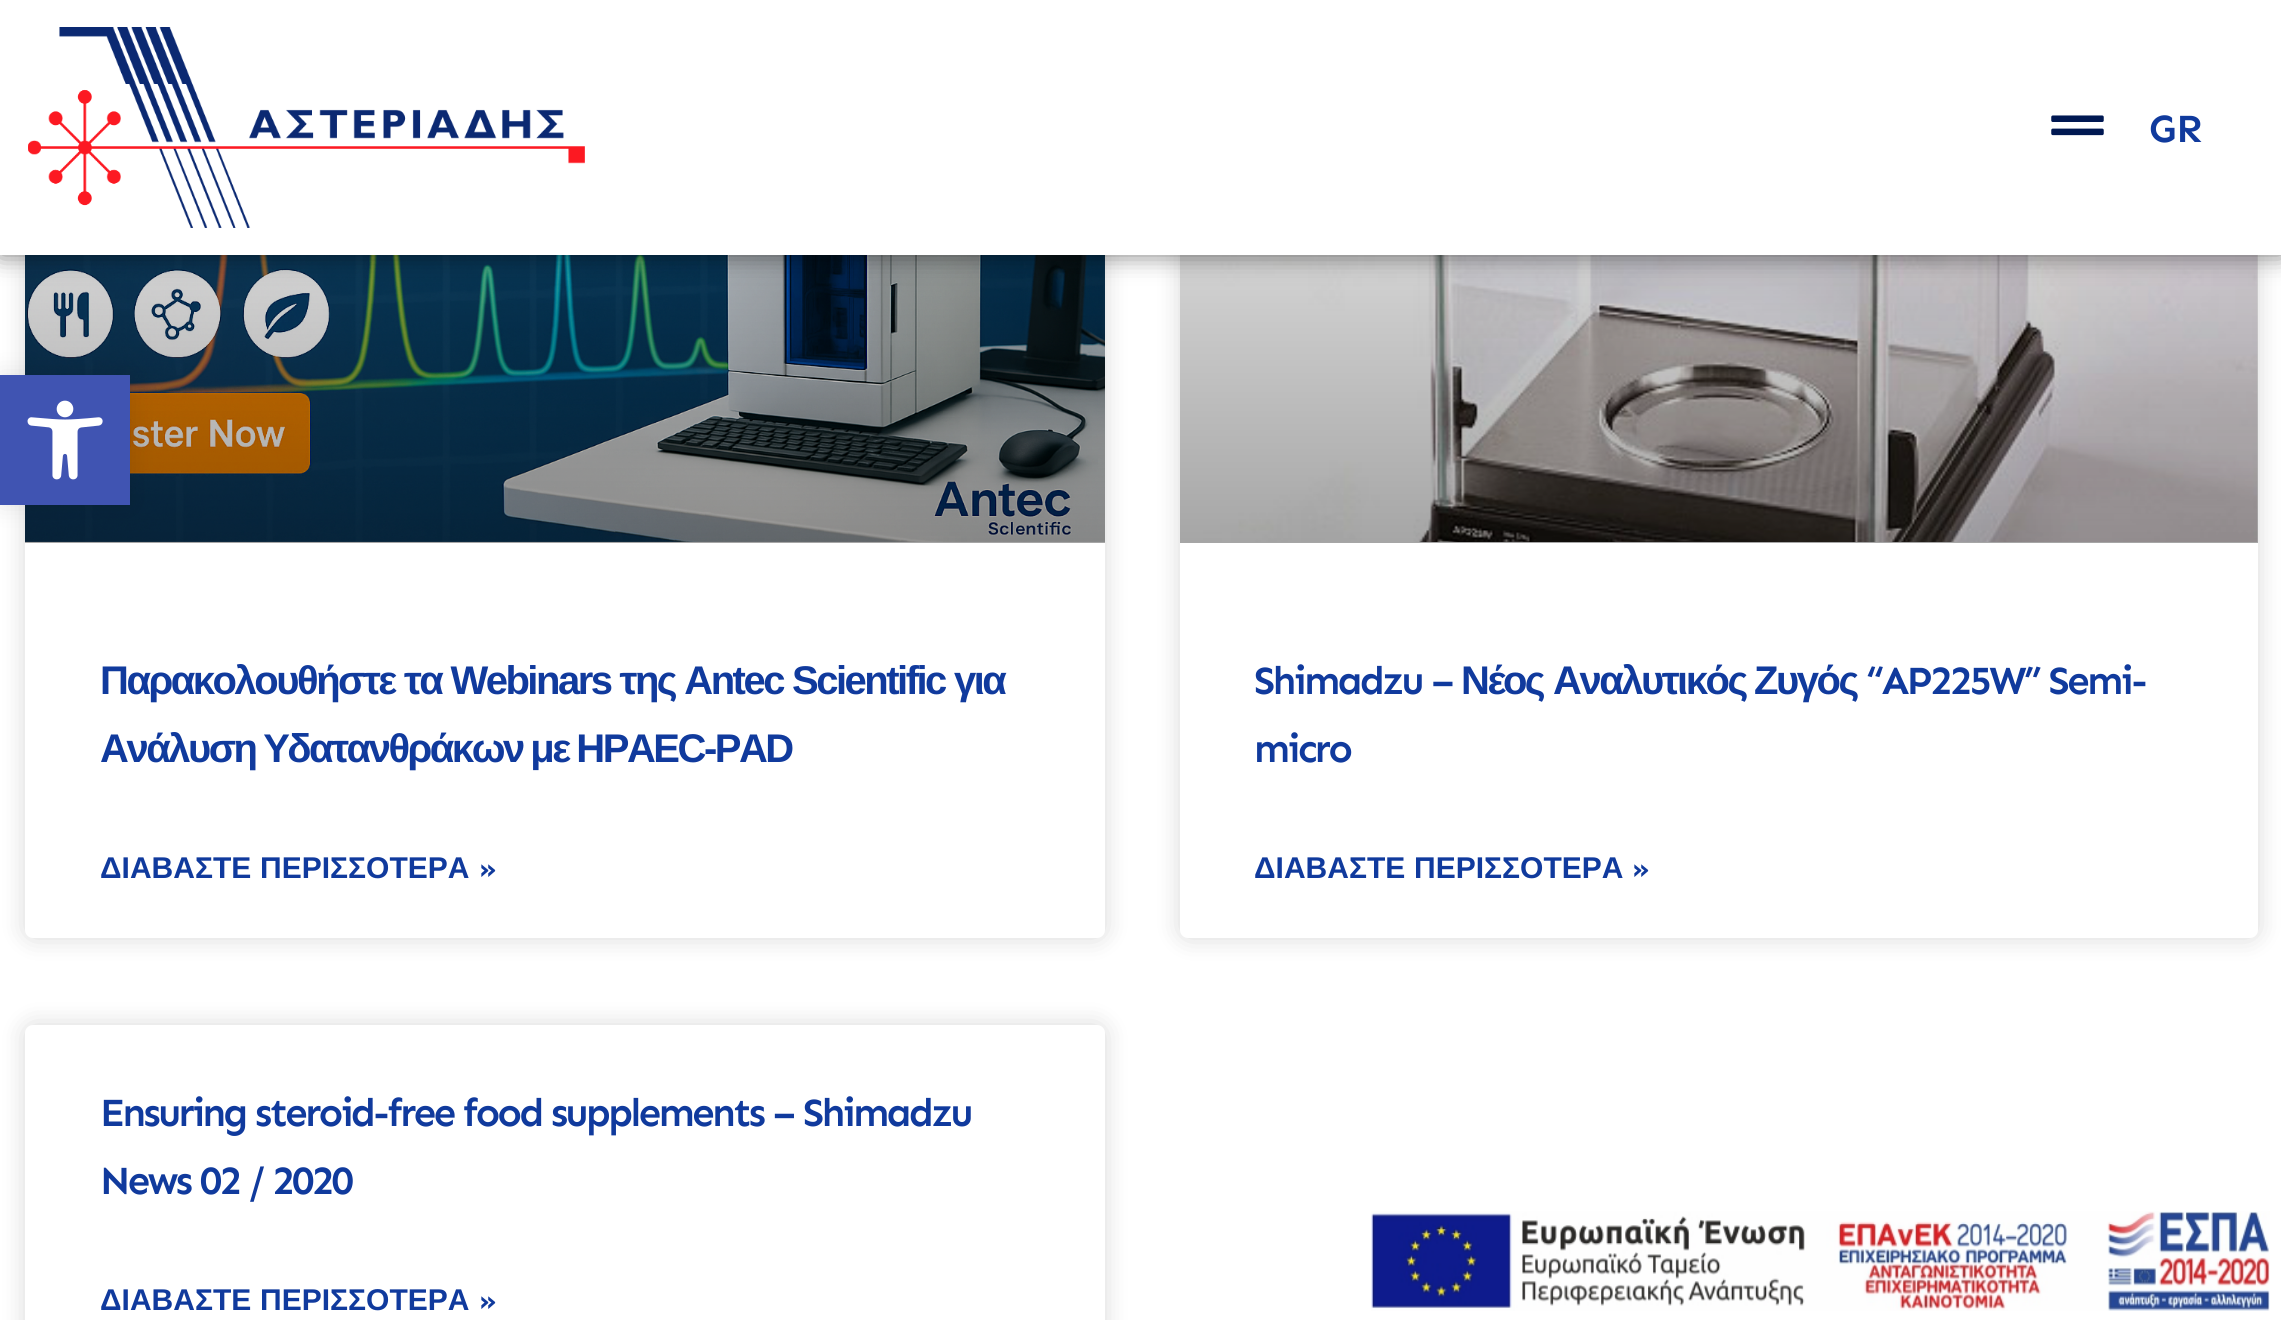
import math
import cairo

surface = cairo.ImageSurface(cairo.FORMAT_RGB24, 2281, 1320)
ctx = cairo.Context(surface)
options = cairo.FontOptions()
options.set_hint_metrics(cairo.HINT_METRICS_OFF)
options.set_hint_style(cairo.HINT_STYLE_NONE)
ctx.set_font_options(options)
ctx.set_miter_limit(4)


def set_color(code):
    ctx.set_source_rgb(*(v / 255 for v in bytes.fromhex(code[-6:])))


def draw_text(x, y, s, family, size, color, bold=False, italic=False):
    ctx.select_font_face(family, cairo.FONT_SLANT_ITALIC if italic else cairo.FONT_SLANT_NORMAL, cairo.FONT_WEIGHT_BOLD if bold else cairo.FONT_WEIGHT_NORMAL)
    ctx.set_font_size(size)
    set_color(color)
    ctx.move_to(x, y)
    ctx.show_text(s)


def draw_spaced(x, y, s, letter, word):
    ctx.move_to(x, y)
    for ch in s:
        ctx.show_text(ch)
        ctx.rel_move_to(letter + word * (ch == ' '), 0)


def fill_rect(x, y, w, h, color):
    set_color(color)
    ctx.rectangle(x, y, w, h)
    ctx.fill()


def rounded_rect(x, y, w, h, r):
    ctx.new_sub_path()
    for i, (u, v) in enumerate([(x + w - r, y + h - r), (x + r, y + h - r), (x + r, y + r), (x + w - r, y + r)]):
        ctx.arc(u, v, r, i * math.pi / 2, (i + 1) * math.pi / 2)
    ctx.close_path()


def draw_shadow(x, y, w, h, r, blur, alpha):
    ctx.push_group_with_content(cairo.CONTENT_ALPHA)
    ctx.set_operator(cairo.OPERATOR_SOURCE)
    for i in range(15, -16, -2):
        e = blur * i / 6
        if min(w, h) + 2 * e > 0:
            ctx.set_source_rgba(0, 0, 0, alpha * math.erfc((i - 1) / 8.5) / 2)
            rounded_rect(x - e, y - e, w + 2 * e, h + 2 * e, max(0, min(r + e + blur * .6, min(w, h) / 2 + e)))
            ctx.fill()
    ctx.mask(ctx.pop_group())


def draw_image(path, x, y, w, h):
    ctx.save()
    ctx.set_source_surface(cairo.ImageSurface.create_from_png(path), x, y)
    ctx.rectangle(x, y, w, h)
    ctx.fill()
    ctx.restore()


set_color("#ffffff")
ctx.paint()
set_color("#000000")
draw_shadow(25, -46, 1080, 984, 8, 12.5, 0.15)
set_color("#ffffff")
rounded_rect(25, -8, 1080, 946, 8)
ctx.fill()
draw_image("assets/img5.png", 25, 255, 1080, 287)
gradient = cairo.LinearGradient(565, 543, 565, -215)
gradient.add_color_stop_rgba(0, 0, 0, 0, 0.35)
gradient.add_color_stop_rgba(0.75, 0, 0, 0, 0)
ctx.set_source(gradient)
ctx.rectangle(25, 255, 1080, 288)
ctx.fill()
set_color("#000000")
draw_shadow(1180, -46, 1078, 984, 8, 12.5, 0.15)
set_color("#ffffff")
rounded_rect(1180, -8, 1078, 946, 8)
ctx.fill()
draw_image("assets/img6.png", 1184, 255, 1074, 287)
gradient = cairo.LinearGradient(1719, 543, 1719, -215)
gradient.add_color_stop_rgba(0, 0, 0, 0, 0.35)
gradient.add_color_stop_rgba(0.75, 0, 0, 0, 0)
ctx.set_source(gradient)
ctx.rectangle(1180, 255, 1078, 288)
ctx.fill()
set_color("#000000")
draw_shadow(0, 0, 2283, 255, 0, 12.5, 0.5)
fill_rect(0, 0, 2281, 255, "#ffffff")
draw_image("assets/img1.png", 28, 27, 557, 201)
draw_image("assets/img2.png", 2051, 115, 53, 21)
draw_text(2149, 142, "GR", "Sen SemiBold", 40, "#103a9d")
draw_image("assets/img3.png", 1371, 1211, 899, 100)
set_color("#000000")
draw_shadow(0, 375, 130, 130, 0, 12.5, 0.1)
fill_rect(0, 375, 130, 130, "#4054b2")
draw_image("assets/img4.png", 27, 400, 76, 80)
ctx.select_font_face("Liberation Sans", cairo.FONT_SLANT_NORMAL, cairo.FONT_WEIGHT_BOLD)
set_color("#103a9d")
draw_spaced(100, 694, "Παρακολουθήστε τα Webinars της Antec Scientific για", -2.5, 0.5)
draw_spaced(100, 762, "Ανάλυση Υδατανθράκων με HPAEC-PAD", -2.5, -1)
ctx.set_font_size(30)
draw_spaced(100, 878, "ΔΙΑΒΑΣΤΕ ΠΕΡΙΣΣΟΤΕΡΑ", 0, 0.5)
draw_text(479, 878, "»", "Sen", 30, "#103a9d", bold=True)
ctx.select_font_face("Sen SemiBold")
ctx.set_font_size(40)
draw_spaced(1254, 694, "Shimadzu –", -2.5, 0)
ctx.select_font_face("Liberation Sans", cairo.FONT_SLANT_NORMAL, cairo.FONT_WEIGHT_BOLD)
draw_spaced(1461, 694, "Νέος", -2.5, 0)
draw_spaced(1553, 694, "Αναλυτικός", -2.5, 0)
draw_spaced(1754, 694, "Ζυγός", -2.5, 0)
ctx.select_font_face("Sen SemiBold")
draw_spaced(1866, 694, "“AP225W” Semi-", -2.5, 0)
draw_spaced(1254, 762, "micro", -2.5, 0)
ctx.select_font_face("Liberation Sans", cairo.FONT_SLANT_NORMAL, cairo.FONT_WEIGHT_BOLD)
ctx.set_font_size(30)
draw_spaced(1254, 878, "ΔΙΑΒΑΣΤΕ ΠΕΡΙΣΣΟΤΕΡΑ", 0, 0.5)
draw_text(1632, 878, "»", "Sen", 30, "#103a9d", bold=True)
set_color("#000000")
draw_shadow(25, 1025, 1080, 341, 8, 12.5, 0.15)
set_color("#ffffff")
rounded_rect(25, 1025, 1080, 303, 8)
ctx.fill()
ctx.select_font_face("Sen SemiBold")
ctx.set_font_size(40)
set_color("#103a9d")
draw_spaced(100, 1126, "Ensuring steroid-free food supplements – Shimadzu", -2.5, 0)
draw_spaced(100, 1194, "News 02 / 2020", -2.5, 0)
ctx.select_font_face("Liberation Sans", cairo.FONT_SLANT_NORMAL, cairo.FONT_WEIGHT_BOLD)
ctx.set_font_size(30)
draw_spaced(100, 1310, "ΔΙΑΒΑΣΤΕ ΠΕΡΙΣΣΟΤΕΡΑ", 0, 0.5)
draw_text(479, 1310, "»", "Sen", 30, "#103a9d", bold=True)
surface.write_to_png("output.png")
